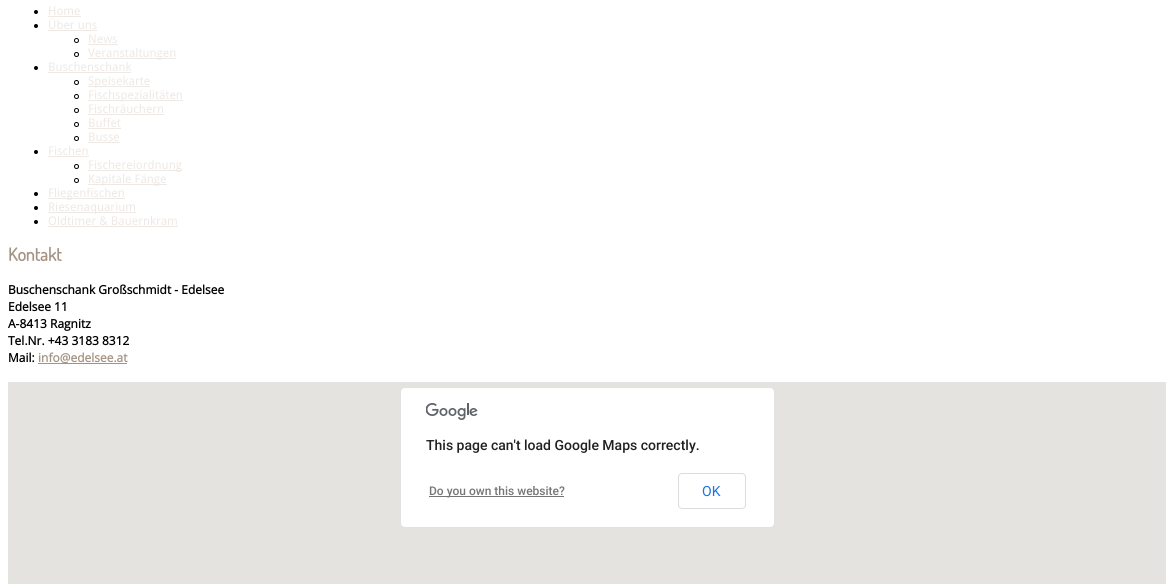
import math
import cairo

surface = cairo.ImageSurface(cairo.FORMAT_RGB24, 1174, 584)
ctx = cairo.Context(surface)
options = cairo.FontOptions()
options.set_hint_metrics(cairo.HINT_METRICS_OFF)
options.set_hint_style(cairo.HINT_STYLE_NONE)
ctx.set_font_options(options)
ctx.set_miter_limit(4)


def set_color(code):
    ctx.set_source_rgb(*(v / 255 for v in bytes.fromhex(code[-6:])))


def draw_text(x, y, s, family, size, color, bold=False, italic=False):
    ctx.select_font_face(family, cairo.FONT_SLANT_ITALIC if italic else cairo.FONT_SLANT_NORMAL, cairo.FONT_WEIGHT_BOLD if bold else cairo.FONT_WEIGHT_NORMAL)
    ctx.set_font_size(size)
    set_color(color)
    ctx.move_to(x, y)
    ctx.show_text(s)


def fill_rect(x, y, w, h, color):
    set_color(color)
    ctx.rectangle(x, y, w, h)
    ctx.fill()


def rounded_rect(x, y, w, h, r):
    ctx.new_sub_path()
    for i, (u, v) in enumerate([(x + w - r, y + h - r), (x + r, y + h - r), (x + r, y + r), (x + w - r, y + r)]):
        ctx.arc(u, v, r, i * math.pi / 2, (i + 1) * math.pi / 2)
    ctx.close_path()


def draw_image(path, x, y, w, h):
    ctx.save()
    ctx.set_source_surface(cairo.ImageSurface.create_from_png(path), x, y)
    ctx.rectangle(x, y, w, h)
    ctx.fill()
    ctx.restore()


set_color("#ffffff")
ctx.paint()
set_color("#000000")
ctx.arc(36, 12, 2, 0, 2 * math.pi)
ctx.fill()
draw_text(48, 15, "Home", "Droid Sans", 12, "#efe9e5")
fill_rect(48, 16, 33, 1, "#efe9e5")
set_color("#000000")
ctx.new_path()
ctx.arc(36, 26, 2, 0, 2 * math.pi)
ctx.fill()
draw_text(48, 29, "Über uns", "Droid Sans", 12, "#efe9e5")
fill_rect(48, 30, 49, 1, "#efe9e5")
ctx.new_path()
ctx.arc(76.5, 40.5, 2, 0, 2 * math.pi)
set_color("#000000")
ctx.set_line_width(1)
ctx.stroke()
draw_text(88, 43, "News", "Droid Sans", 12, "#efe9e5")
fill_rect(88, 44, 30, 1, "#efe9e5")
ctx.new_path()
ctx.arc(76.5, 54.5, 2, 0, 2 * math.pi)
set_color("#000000")
ctx.stroke()
fill_rect(88, 58, 88, 1, "#efe9e5")
draw_text(88, 57, "Veranstaltungen", "Droid Sans", 12, "#efe9e5")
set_color("#000000")
ctx.new_path()
ctx.arc(36, 68, 2, 0, 2 * math.pi)
ctx.fill()
draw_text(48, 71, "Buschenschank", "Droid Sans", 12, "#efe9e5")
fill_rect(48, 72, 83, 1, "#efe9e5")
ctx.new_path()
ctx.arc(76.5, 82.5, 2, 0, 2 * math.pi)
set_color("#000000")
ctx.stroke()
fill_rect(88, 86, 62, 1, "#efe9e5")
draw_text(88, 85, "Speisekarte", "Droid Sans", 12, "#efe9e5")
ctx.new_path()
ctx.arc(76.5, 96.5, 2, 0, 2 * math.pi)
set_color("#000000")
ctx.stroke()
fill_rect(88, 100, 95, 1, "#efe9e5")
draw_text(88, 99, "Fischspezialitäten", "Droid Sans", 12, "#efe9e5")
ctx.new_path()
ctx.arc(76.5, 110.5, 2, 0, 2 * math.pi)
set_color("#000000")
ctx.stroke()
draw_text(88, 113, "Fischräuchern", "Droid Sans", 12, "#efe9e5")
fill_rect(88, 114, 76, 1, "#efe9e5")
ctx.new_path()
ctx.arc(76.5, 124.5, 2, 0, 2 * math.pi)
set_color("#000000")
ctx.stroke()
draw_text(88, 127, "Buffet", "Droid Sans", 12, "#efe9e5")
fill_rect(88, 128, 33, 1, "#efe9e5")
ctx.new_path()
ctx.arc(76.5, 138.5, 2, 0, 2 * math.pi)
set_color("#000000")
ctx.stroke()
draw_text(88, 141, "Busse", "Droid Sans", 12, "#efe9e5")
fill_rect(88, 142, 32, 1, "#efe9e5")
set_color("#000000")
ctx.new_path()
ctx.arc(36, 152, 2, 0, 2 * math.pi)
ctx.fill()
draw_text(48, 155, "Fischen", "Droid Sans", 12, "#efe9e5")
fill_rect(48, 156, 41, 1, "#efe9e5")
ctx.new_path()
ctx.arc(76.5, 166.5, 2, 0, 2 * math.pi)
set_color("#000000")
ctx.stroke()
fill_rect(88, 170, 94, 1, "#efe9e5")
draw_text(88, 169, "Fischereiordnung", "Droid Sans", 12, "#efe9e5")
ctx.new_path()
ctx.arc(76.5, 180.5, 2, 0, 2 * math.pi)
set_color("#000000")
ctx.stroke()
fill_rect(88, 184, 79, 1, "#efe9e5")
draw_text(88, 183, "Kapitale Fänge", "Droid Sans", 12, "#efe9e5")
set_color("#000000")
ctx.new_path()
ctx.arc(36, 194, 2, 0, 2 * math.pi)
ctx.fill()
fill_rect(48, 198, 77, 1, "#efe9e5")
draw_text(48, 197, "Fliegenfischen", "Droid Sans", 12, "#efe9e5")
set_color("#000000")
ctx.new_path()
ctx.arc(36, 208, 2, 0, 2 * math.pi)
ctx.fill()
fill_rect(48, 212, 88, 1, "#efe9e5")
draw_text(48, 211, "Riesenaquarium", "Droid Sans", 12, "#efe9e5")
set_color("#000000")
ctx.new_path()
ctx.arc(36, 222, 2, 0, 2 * math.pi)
ctx.fill()
draw_text(48, 225, "Oldtimer & Bauernkram", "Droid Sans", 12, "#efe9e5")
fill_rect(48, 226, 130, 1, "#efe9e5")
draw_text(8, 261, "Kontakt", "Dosis", 18, "#a59483", bold=True)
draw_text(8, 294, "Buschenschank Großschmidt - Edelsee", "Open Sans", 12, "#000000", bold=True)
draw_text(8, 311, "Edelsee 11", "Open Sans", 12, "#000000", bold=True)
draw_text(8, 328, "A-8413 Ragnitz", "Open Sans", 12, "#000000", bold=True)
draw_text(8, 345, "Tel.Nr. +43 3183 8312", "Open Sans", 12, "#000000", bold=True)
draw_text(8, 362, "Mail:", "Open Sans", 12, "#000000", bold=True)
fill_rect(38, 363, 89, 1, "#a59483")
draw_text(38, 362, "info@edelsee.at", "Open Sans", 12, "#a59483", bold=True)
fill_rect(8, 382, 1158, 202, "#e5e3df")
set_color("#ffffff")
rounded_rect(400, 387, 375, 141, 5)
ctx.fill()
rounded_rect(400.5, 387.5, 374, 140, 4.5)
ctx.set_source_rgba(0, 0, 0, 0.12)
ctx.stroke()
draw_image("assets/img1.png", 426, 403, 52, 17)
draw_text(426, 450, "This page can't load Google Maps correctly.", "Roboto Medium", 14, "#212121")
fill_rect(429, 496, 135, 1, "#757575")
draw_text(429, 495, "Do you own this website?", "Roboto Medium", 12, "#757575")
rounded_rect(678.5, 473.5, 67, 35, 3.5)
set_color("#dadce0")
ctx.stroke()
draw_text(702, 496, "OK", "Roboto", 14, "#1a73e8")
surface.write_to_png("output.png")
